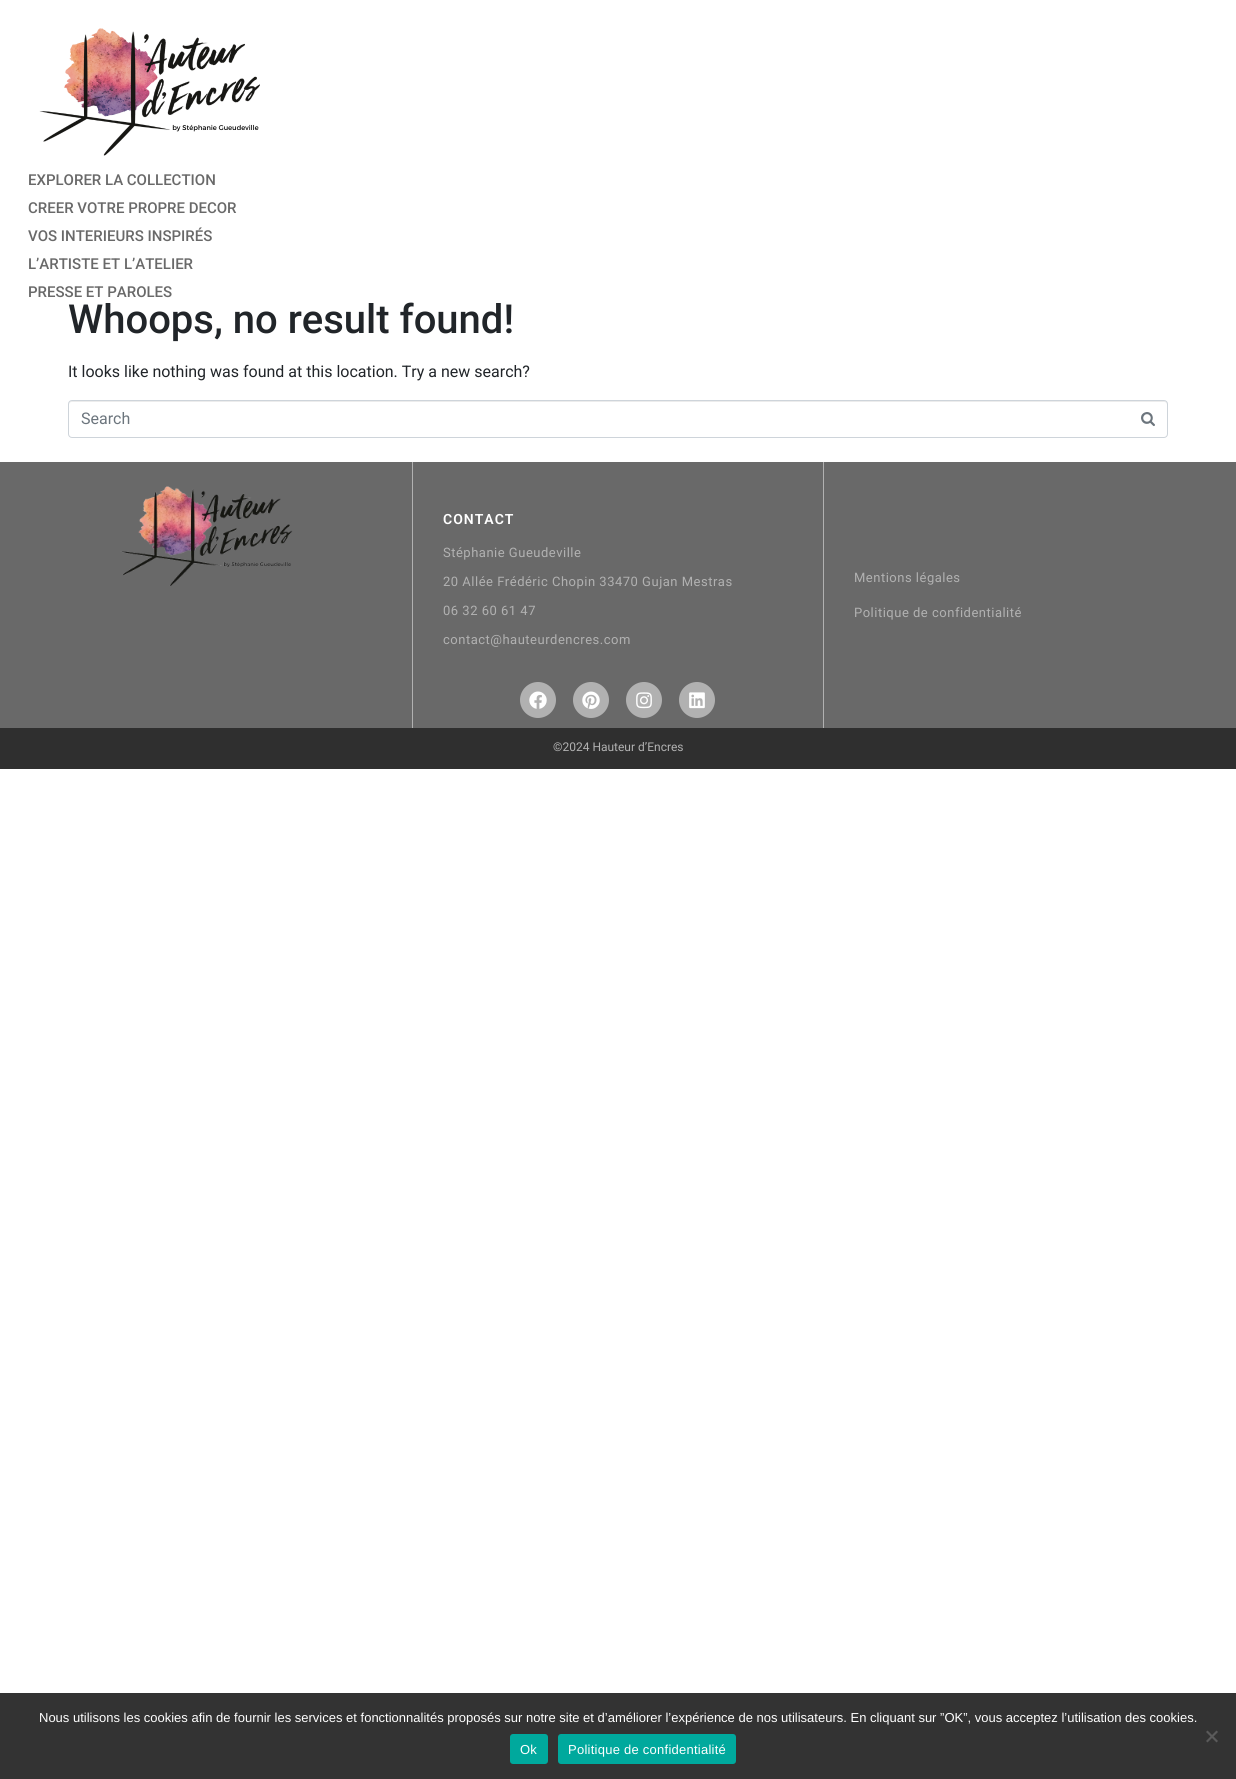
import math
import cairo

surface = cairo.ImageSurface(cairo.FORMAT_RGB24, 1236, 1779)
ctx = cairo.Context(surface)
options = cairo.FontOptions()
options.set_hint_metrics(cairo.HINT_METRICS_OFF)
options.set_hint_style(cairo.HINT_STYLE_NONE)
ctx.set_font_options(options)
ctx.set_miter_limit(4)


def set_color(code):
    ctx.set_source_rgb(*(v / 255 for v in bytes.fromhex(code[-6:])))


def draw_text(x, y, s, family, size, color, bold=False, italic=False):
    ctx.select_font_face(family, cairo.FONT_SLANT_ITALIC if italic else cairo.FONT_SLANT_NORMAL, cairo.FONT_WEIGHT_BOLD if bold else cairo.FONT_WEIGHT_NORMAL)
    ctx.set_font_size(size)
    set_color(color)
    ctx.move_to(x, y)
    ctx.show_text(s)


def draw_spaced(x, y, s, letter, word):
    ctx.move_to(x, y)
    for ch in s:
        ctx.show_text(ch)
        ctx.rel_move_to(letter + word * (ch == ' '), 0)


def fill_rect(x, y, w, h, color):
    set_color(color)
    ctx.rectangle(x, y, w, h)
    ctx.fill()


def rounded_rect(x, y, w, h, r):
    ctx.new_sub_path()
    for i, (u, v) in enumerate([(x + w - r, y + h - r), (x + r, y + h - r), (x + r, y + r), (x + w - r, y + r)]):
        ctx.arc(u, v, r, i * math.pi / 2, (i + 1) * math.pi / 2)
    ctx.close_path()


def draw_image(path, x, y, w, h):
    ctx.save()
    ctx.set_source_surface(cairo.ImageSurface.create_from_png(path), x, y)
    ctx.rectangle(x, y, w, h)
    ctx.fill()
    ctx.restore()


set_color("#ffffff")
ctx.paint()
draw_image("assets/img1.png", 39, 28, 221, 128)
draw_text(28, 185, "EXPLORER LA COLLECTION", "Roboto Medium", 15, "#696969")
draw_text(28, 213, "CREER VOTRE PROPRE DECOR", "Roboto Medium", 15, "#696969")
draw_text(28, 241, "VOS INTERIEURS INSPIRÉS", "Roboto Medium", 15, "#696969")
draw_text(28, 269, "L’ARTISTE ET L’ATELIER", "Roboto Medium", 15, "#696969")
draw_text(28, 297, "PRESSE ET PAROLES", "Roboto Medium", 15, "#696969")
draw_text(68, 333, "Whoops, no result found!", "Roboto Medium", 40, "#212529")
draw_text(68, 377, "It looks like nothing was found at this location. Try a new search?", "Roboto", 16, "#212529")
set_color("#ececec")
ctx.new_path()
ctx.move_to(72, 402)
ctx.line_to(1164, 402)
ctx.curve_to(1166, 402, 1167, 403, 1167, 405)
ctx.line_to(1167, 404)
ctx.curve_to(1167, 402, 1166, 401, 1164, 401)
ctx.line_to(72, 401)
ctx.curve_to(70, 401, 69, 402, 69, 404)
ctx.line_to(69, 405)
ctx.curve_to(69, 403, 70, 402, 72, 402)
ctx.close_path()
ctx.fill()
rounded_rect(68.5, 400.5, 1099, 37, 3.5)
set_color("#ced4da")
ctx.set_line_width(1)
ctx.stroke()
draw_text(81, 424, "Search", "Roboto", 16, "#6c757d")
draw_image("assets/img2.png", 1141, 412, 14, 15)
fill_rect(0, 462, 1236, 266, "#696969")
draw_image("assets/img3.png", 120, 486, 173, 100)
fill_rect(823, 462, 1, 266, "#b1b1b1")
fill_rect(412, 462, 1, 266, "#b1b1b1")
ctx.select_font_face("Roboto SemiBold")
ctx.set_font_size(14)
set_color("#ffffff")
draw_spaced(443, 524, "CONTACT", 1, 0)
ctx.select_font_face("Roboto")
ctx.set_font_size(13)
set_color("#b1b1b1")
draw_spaced(443, 557, "Stéphanie Gueudeville", 0.5, 0)
draw_spaced(443, 586, "20 Allée Frédéric Chopin 33470 Gujan Mestras", 0.5, 0)
draw_spaced(443, 615, "06 32 60 61 47", 0.5, 0)
draw_spaced(443, 644, "contact@hauteurdencres.com", 0.5, 0)
ctx.new_path()
ctx.arc(538, 700, 18, 0, 2 * math.pi)
ctx.fill()
draw_image("assets/img4.png", 529, 691, 18, 18)
ctx.arc(591, 700, 18, 0, 2 * math.pi)
ctx.fill()
draw_image("assets/img5.png", 582, 691, 18, 18)
ctx.arc(644, 700, 18, 0, 2 * math.pi)
ctx.fill()
draw_image("assets/img6.png", 636, 692, 16, 17)
ctx.arc(697, 700, 18, 0, 2 * math.pi)
ctx.fill()
draw_image("assets/img7.png", 689, 692, 16, 17)
draw_spaced(854, 582, "Mentions légales", 0.5, 0)
draw_spaced(854, 617, "Politique de confidentialité", 0.5, 0)
fill_rect(0, 728, 1236, 41, "#2f2f2f")
draw_text(553, 751, "©2024 Hauteur d’Encres", "Roboto", 12, "#b1b1b1")
fill_rect(0, 1693, 1236, 86, "#333333")
draw_text(39, 1722, "Nous utilisons les cookies afin de fournir les services et fonctionnalités proposés sur notre site et d’améliorer l’expérience de nos utilisateurs. En cliquant sur ”OK”, vous acceptez l’utilisation des cookies.", "Liberation Sans", 13, "#ffffff")
set_color("#5a5a5a")
ctx.new_path()
ctx.move_to(1216.5, 1730.5)
ctx.line_to(1218, 1732)
ctx.line_to(1207.5, 1742.5)
ctx.line_to(1206, 1741)
ctx.close_path()
ctx.fill()
ctx.new_path()
ctx.move_to(1206, 1732)
ctx.line_to(1207.5, 1730.5)
ctx.line_to(1218, 1741)
ctx.line_to(1216.5, 1742.5)
ctx.close_path()
ctx.fill()
set_color("#00a99d")
rounded_rect(510, 1734, 38, 30, 3)
ctx.fill()
set_color("#ffffff")
draw_spaced(520, 1754, "Ok", 0.25, 0)
set_color("#00a99d")
rounded_rect(558, 1734, 178, 30, 3)
ctx.fill()
set_color("#ffffff")
draw_spaced(568, 1754, "Politique de confidentialité", 0.25, 0)
surface.write_to_png("output.png")
